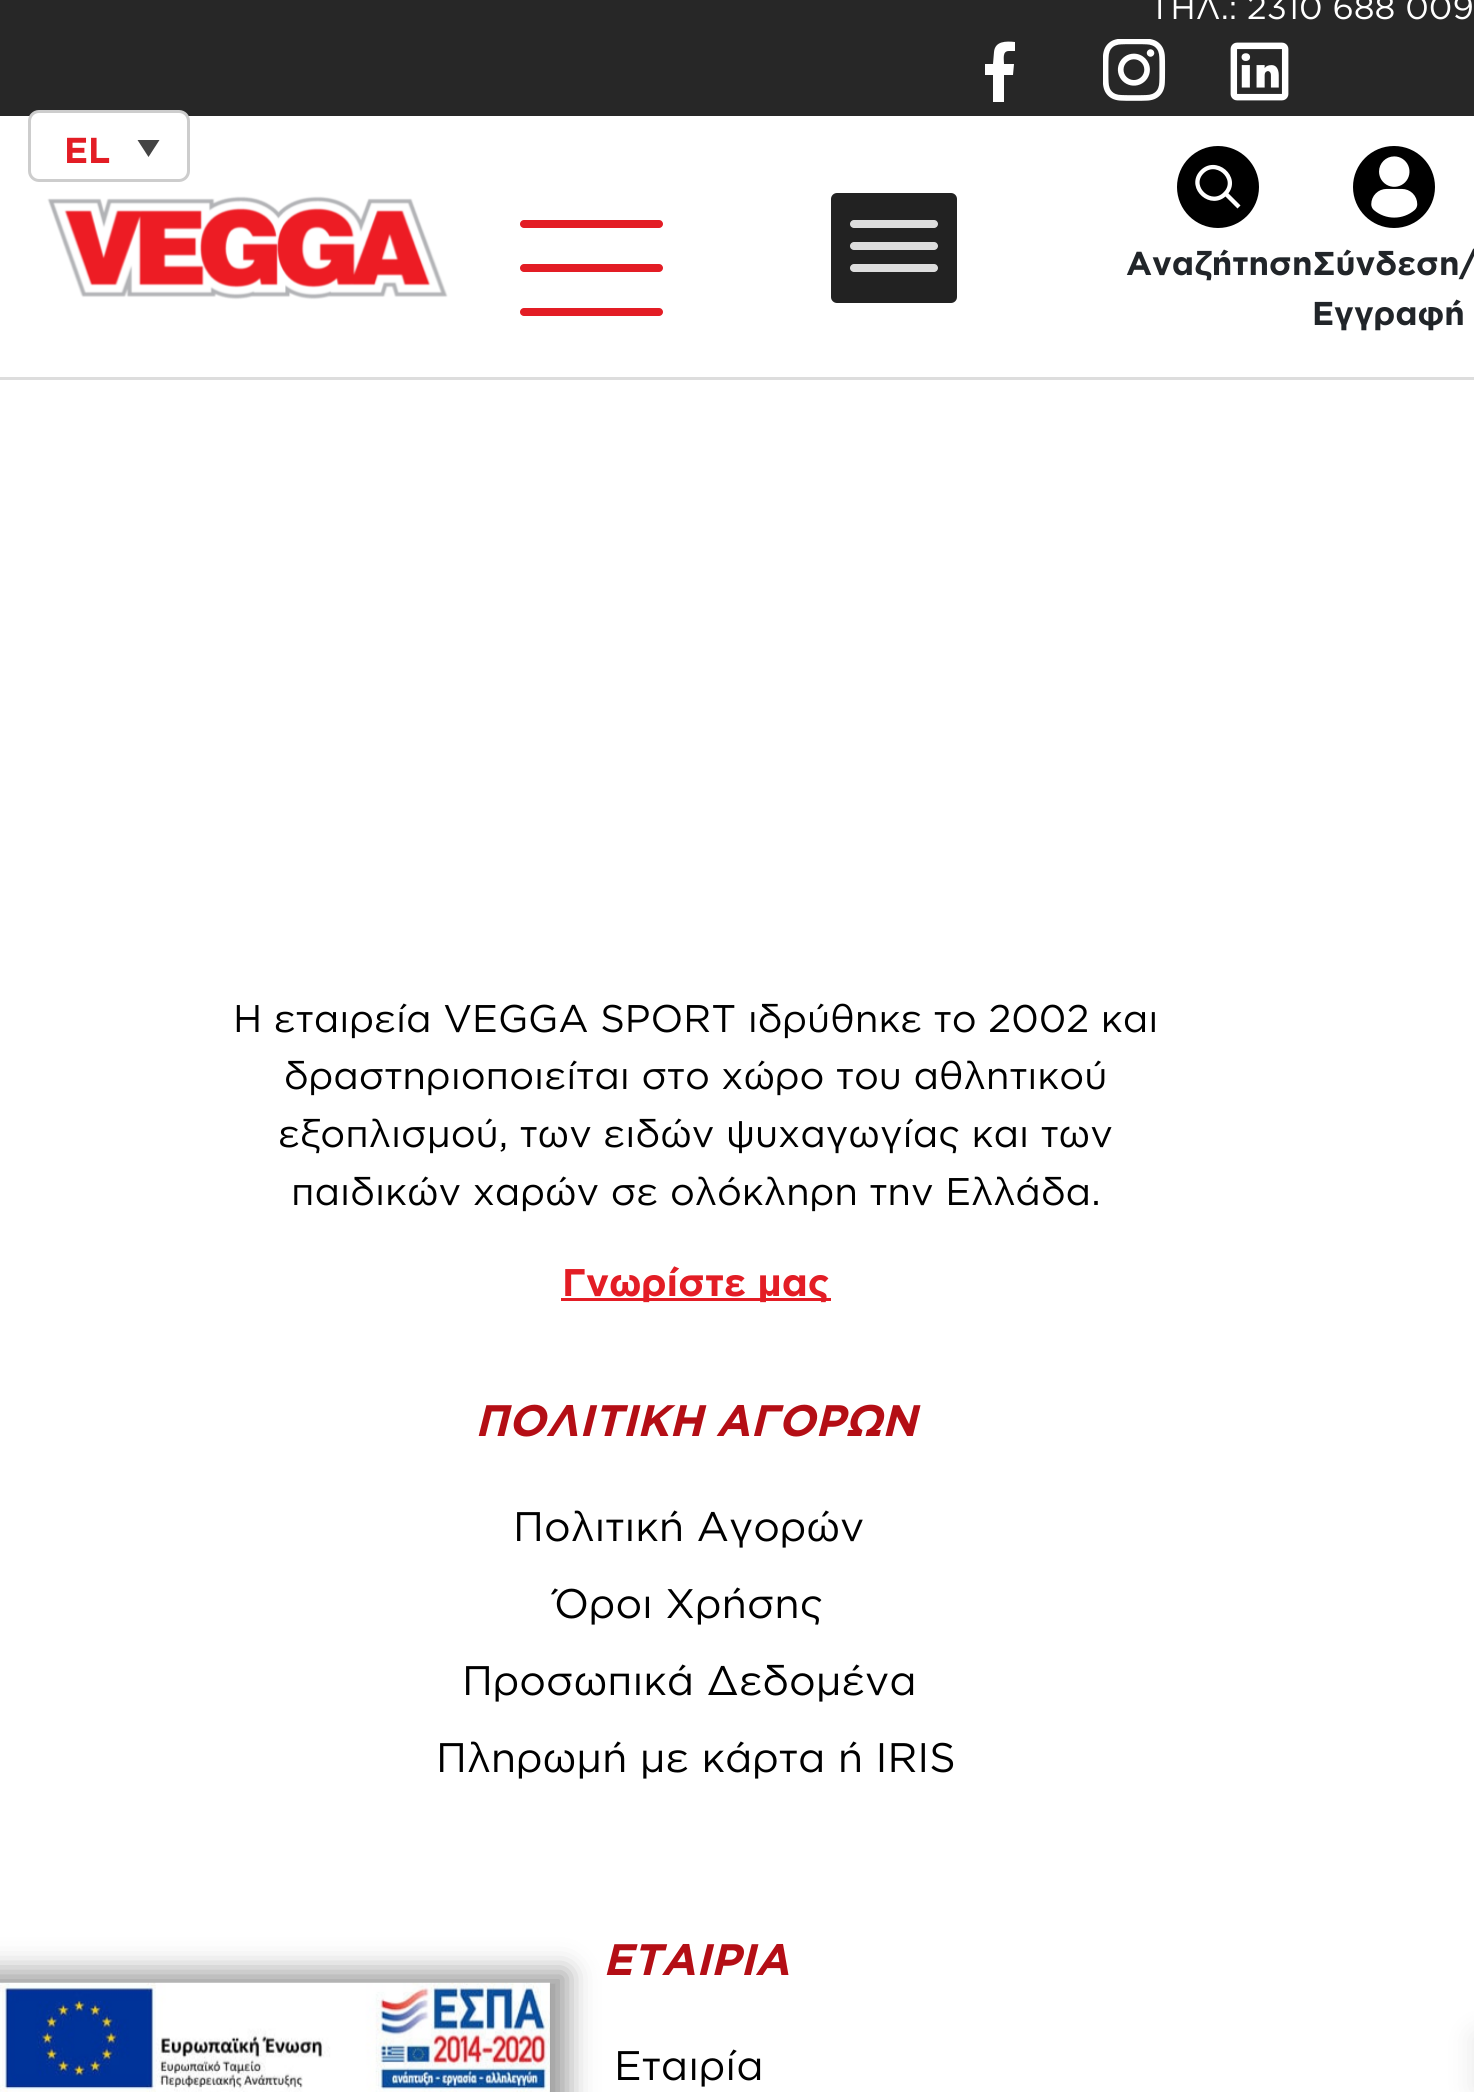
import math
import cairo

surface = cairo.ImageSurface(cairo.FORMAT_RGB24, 1474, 2092)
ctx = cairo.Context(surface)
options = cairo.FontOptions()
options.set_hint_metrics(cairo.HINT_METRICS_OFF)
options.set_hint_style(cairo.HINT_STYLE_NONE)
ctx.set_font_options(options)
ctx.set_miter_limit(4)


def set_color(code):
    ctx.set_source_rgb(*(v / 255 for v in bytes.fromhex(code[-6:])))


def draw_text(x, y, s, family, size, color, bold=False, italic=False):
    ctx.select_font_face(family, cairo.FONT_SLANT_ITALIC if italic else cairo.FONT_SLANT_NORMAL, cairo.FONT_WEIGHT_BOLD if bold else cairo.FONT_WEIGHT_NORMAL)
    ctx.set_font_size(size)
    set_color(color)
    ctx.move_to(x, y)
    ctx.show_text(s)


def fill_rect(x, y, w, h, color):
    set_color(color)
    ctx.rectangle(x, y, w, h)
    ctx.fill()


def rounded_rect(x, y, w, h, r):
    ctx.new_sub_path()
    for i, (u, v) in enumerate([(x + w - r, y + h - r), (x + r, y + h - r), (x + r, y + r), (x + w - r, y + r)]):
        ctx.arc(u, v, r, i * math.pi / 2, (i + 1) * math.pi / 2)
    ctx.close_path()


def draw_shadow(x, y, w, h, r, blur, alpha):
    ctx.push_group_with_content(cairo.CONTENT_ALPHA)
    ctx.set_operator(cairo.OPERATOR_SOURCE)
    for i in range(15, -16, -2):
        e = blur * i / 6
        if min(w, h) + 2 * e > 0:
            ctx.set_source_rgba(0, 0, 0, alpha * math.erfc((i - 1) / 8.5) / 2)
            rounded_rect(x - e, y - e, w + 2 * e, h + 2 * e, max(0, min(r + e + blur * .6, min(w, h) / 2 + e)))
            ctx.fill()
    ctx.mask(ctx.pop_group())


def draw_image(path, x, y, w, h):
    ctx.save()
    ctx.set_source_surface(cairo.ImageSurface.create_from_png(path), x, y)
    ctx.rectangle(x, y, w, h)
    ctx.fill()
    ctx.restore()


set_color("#ffffff")
ctx.paint()
fill_rect(0, 377, 1474, 3, "#dddddd")
fill_rect(0, 0, 1474, 116, "#272727")
draw_text(1149, 19, "ΤΗΛ.: 2310 688 009", "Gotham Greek", 33, "#ffffff")
ctx.save()
ctx.rectangle(985, 41, 33, 61)
ctx.clip()
ctx.new_path()
ctx.move_to(1010, 51)
ctx.line_to(1015, 51)
ctx.line_to(1015, 42)
ctx.curve_to(1006, 41, 995, 41, 994, 52)
ctx.line_to(993, 64)
ctx.line_to(984, 64)
ctx.line_to(984, 75)
ctx.line_to(993, 75)
ctx.line_to(993, 102)
ctx.line_to(1004, 102)
ctx.line_to(1004, 75)
ctx.line_to(1013, 75)
ctx.line_to(1014, 64)
ctx.line_to(1004, 64)
ctx.curve_to(1004, 59, 1002, 51, 1009, 51)
ctx.close_path()
ctx.fill()
ctx.restore()
draw_image("assets/img1.png", 1103, 39, 63, 62)
draw_image("assets/img2.png", 1230, 42, 59, 59)
rounded_rect(29.5, 111.5, 159, 69, 9.5)
ctx.fill_preserve()
set_color("#cdcdcd")
ctx.set_line_width(3)
ctx.stroke()
draw_text(64, 163, "EL", "Gotham Greek", 36, "#e31d25", bold=True)
set_color("#444444")
ctx.new_path()
ctx.move_to(137.5, 140)
ctx.line_to(159.5, 140)
ctx.line_to(148.5, 157)
ctx.close_path()
ctx.fill()
draw_image("assets/img3.png", 47, 196, 401, 104)
set_color("#e31d25")
rounded_rect(520, 220, 143, 8, 4)
ctx.fill()
rounded_rect(520, 264, 143, 8, 4)
ctx.fill()
rounded_rect(520, 308, 143, 8, 4)
ctx.fill()
set_color("#222222")
rounded_rect(831, 193, 126, 110, 6)
ctx.fill()
set_color("#dddddd")
rounded_rect(850, 220, 88, 8, 4)
ctx.fill()
rounded_rect(850, 242, 88, 8, 4)
ctx.fill()
rounded_rect(850, 264, 88, 8, 4)
ctx.fill()
set_color("#000000")
ctx.arc(1218, 187, 41, 0, 2 * math.pi)
ctx.fill()
ctx.new_path()
ctx.move_to(1225.5, 193.5)
ctx.curve_to(1211.5, 208.5, 1188.5, 188, 1201, 173)
ctx.curve_to(1215, 156.5, 1240, 178, 1225.5, 193.5)
ctx.line_to(1239, 207)
ctx.close_path()
set_color("#ffffff")
ctx.set_line_width(4.3)
ctx.stroke()
draw_text(1126, 275, "ΑναζήτησηΣύνδεση/", "Gotham Greek", 33, "#212529", bold=True)
draw_image("assets/img4.png", 1353, 146, 82, 82)
draw_text(1312, 325, "Εγγραφή", "Gotham Greek", 33, "#212529", bold=True)
draw_text(233, 1032, "Η εταιρεία VEGGA SPORT ιδρύθηκε το 2002 και", "Gotham Greek", 38.5, "#000000")
draw_text(284, 1089, "δραστηριοποιείται στο χώρο του αθλητικού", "Gotham Greek", 38.5, "#000000")
draw_text(278, 1147, "εξοπλισμού, των ειδών ψυχαγωγίας και των", "Gotham Greek", 38.5, "#000000")
draw_text(291, 1205, "παιδικών χαρών σε ολόκληρη την Ελλάδα.", "Gotham Greek", 38.5, "#000000")
fill_rect(561, 1298, 270, 3, "#e31d25")
draw_text(562, 1296, "Γνωρίστε μας", "Gotham Greek", 38.5, "#e31d25", bold=True)
draw_text(475, 1436, "ΠΟΛΙΤΙΚΗ ΑΓΟΡΩΝ", "Gotham Greek", 44, "#b40e15", bold=True, italic=True)
draw_text(513, 1541, "Πολιτική Αγορών", "Gotham Greek", 41.25, "#000000")
draw_text(554, 1618, "Όροι Χρήσης", "Gotham Greek", 41.25, "#000000")
draw_text(462, 1695, "Προσωπικά Δεδομένα", "Gotham Greek", 41.25, "#000000")
draw_text(436, 1772, "Πληρωμή με κάρτα ή IRIS", "Gotham Greek", 41.25, "#000000")
draw_text(603, 1975, "ΕΤΑΙΡΙΑ", "Gotham Greek", 44, "#b40e15", bold=True, italic=True)
draw_text(614, 2080, "Εταιρία", "Gotham Greek", 41.25, "#000000")
set_color("#333333")
draw_shadow(-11, 1972, 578, 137, 0, 14, 0.5)
draw_image("assets/img5.png", 0, 1982, 550, 110)
set_color("#000000")
draw_shadow(1474, 2035, 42, 55, 0, 14, 0.1)
surface.write_to_png("output.png")
